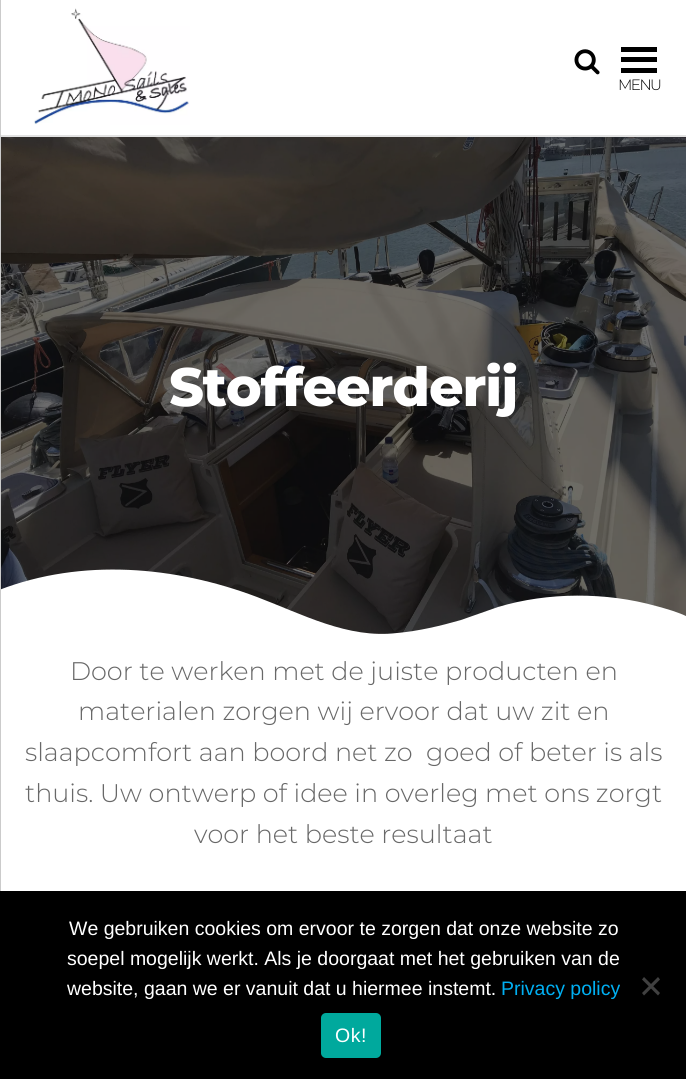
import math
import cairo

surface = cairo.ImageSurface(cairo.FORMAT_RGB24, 686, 1079)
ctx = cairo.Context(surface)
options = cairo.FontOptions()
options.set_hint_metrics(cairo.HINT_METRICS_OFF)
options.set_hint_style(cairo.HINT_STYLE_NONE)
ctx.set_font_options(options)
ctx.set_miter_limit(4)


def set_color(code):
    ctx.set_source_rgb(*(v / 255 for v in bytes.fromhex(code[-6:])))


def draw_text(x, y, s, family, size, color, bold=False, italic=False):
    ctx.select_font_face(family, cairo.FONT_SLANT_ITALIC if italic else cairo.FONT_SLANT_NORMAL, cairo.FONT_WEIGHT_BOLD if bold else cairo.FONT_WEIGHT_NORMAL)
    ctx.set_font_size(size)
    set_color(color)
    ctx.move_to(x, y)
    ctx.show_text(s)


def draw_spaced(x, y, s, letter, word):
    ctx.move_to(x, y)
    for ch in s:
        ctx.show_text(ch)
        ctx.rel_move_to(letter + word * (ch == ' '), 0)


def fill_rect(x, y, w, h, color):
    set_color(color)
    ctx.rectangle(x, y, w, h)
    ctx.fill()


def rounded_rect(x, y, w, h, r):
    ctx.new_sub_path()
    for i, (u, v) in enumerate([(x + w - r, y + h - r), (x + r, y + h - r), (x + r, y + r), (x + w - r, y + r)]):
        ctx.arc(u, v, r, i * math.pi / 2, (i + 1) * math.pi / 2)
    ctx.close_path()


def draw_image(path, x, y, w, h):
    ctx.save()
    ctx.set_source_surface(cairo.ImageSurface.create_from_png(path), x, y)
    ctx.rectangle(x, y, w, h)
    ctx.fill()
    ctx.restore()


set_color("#ffffff")
ctx.paint()
fill_rect(0, 135, 686, 2, "#e2e2e2")
draw_image("assets/img3.png", 1, 137, 685, 497)
gradient = cairo.RadialGradient(0, 0, 0, 0, 0, 1)
gradient.set_matrix(cairo.Matrix(1 / 486, 0, 0, 1 / 353, -1 * 344 / 486, -1 * 386 / 353))
gradient.add_color_stop_rgba(1, 0.043, 0.043, 0.043, 0.6)
gradient.add_color_stop_rgba(1, 0, 0, 0, 0.6)
ctx.set_source(gradient)
ctx.rectangle(1, 137, 685, 497)
ctx.fill()
set_color("#ffffff")
ctx.new_path()
ctx.move_to(397, 633)
ctx.curve_to(348, 639, 302, 614, 257, 597)
ctx.curve_to(175, 566, 82, 558, -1, 590)
ctx.line_to(-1, 638)
ctx.line_to(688, 638)
ctx.line_to(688, 617)
ctx.curve_to(678, 612, 667, 609, 656, 606)
ctx.curve_to(606, 592, 548, 592, 498, 607)
ctx.line_to(461, 620)
ctx.curve_to(440, 626, 419, 631, 397, 633)
ctx.close_path()
ctx.fill()
fill_rect(0, 0, 1, 891, "#cbcbcb")
draw_image("assets/img1.png", 34, 8, 156, 117)
draw_image("assets/img2.png", 574, 49, 26, 26)
fill_rect(621, 47, 36, 5, "#000000")
fill_rect(621, 57, 36, 5, "#000000")
fill_rect(621, 68, 36, 5, "#000000")
ctx.select_font_face("Montserrat Light")
ctx.set_font_size(15)
draw_spaced(618, 90, "MENU", -1.5, 0)
ctx.select_font_face("Montserrat ExtraBold")
ctx.set_font_size(54)
set_color("#ffffff")
draw_spaced(169, 406, "Stoffeerderij", -1.1, 0)
draw_text(70, 680, "Door te werken met de juiste producten en", "Montserrat Light", 25.5, "#686868")
draw_text(78, 720, "materialen zorgen wij ervoor dat uw zit en", "Montserrat Light", 25.5, "#686868")
draw_text(25, 761, "slaapcomfort aan boord net zo", "Montserrat Light", 25.5, "#686868")
draw_text(426, 761, "goed of beter is als", "Montserrat Light", 25.5, "#686868")
draw_text(25, 802, "thuis. Uw ontwerp of idee in overleg met ons zorgt", "Montserrat Light", 25.5, "#686868")
draw_text(194, 843, "voor het beste resultaat", "Montserrat Light", 25.5, "#686868")
fill_rect(0, 891, 686, 188, "#000000")
draw_text(69, 935, "We gebruiken cookies om ervoor te zorgen dat onze website zo", "Liberation Sans", 19.5, "#ffffff")
draw_text(67, 965, "soepel mogelijk werkt. Als je doorgaat met het gebruiken van de", "Liberation Sans", 19.5, "#ffffff")
draw_text(67, 995, "website, gaan we er vanuit dat u hiermee instemt.", "Liberation Sans", 19.5, "#ffffff")
draw_text(501, 995, "Privacy policy", "Liberation Sans", 19.5, "#00aff2")
set_color("#404040")
ctx.new_path()
ctx.move_to(658, 977)
ctx.line_to(660, 979.5)
ctx.line_to(644, 995.5)
ctx.line_to(642, 993)
ctx.close_path()
ctx.fill()
ctx.new_path()
ctx.move_to(642, 979.5)
ctx.line_to(644, 977)
ctx.line_to(660, 993)
ctx.line_to(658, 995.5)
ctx.close_path()
ctx.fill()
set_color("#00a99d")
rounded_rect(321, 1013, 60, 45, 5)
ctx.fill()
set_color("#ffffff")
draw_spaced(335, 1042, "Ok!", 0.5, 0)
surface.write_to_png("output.png")
